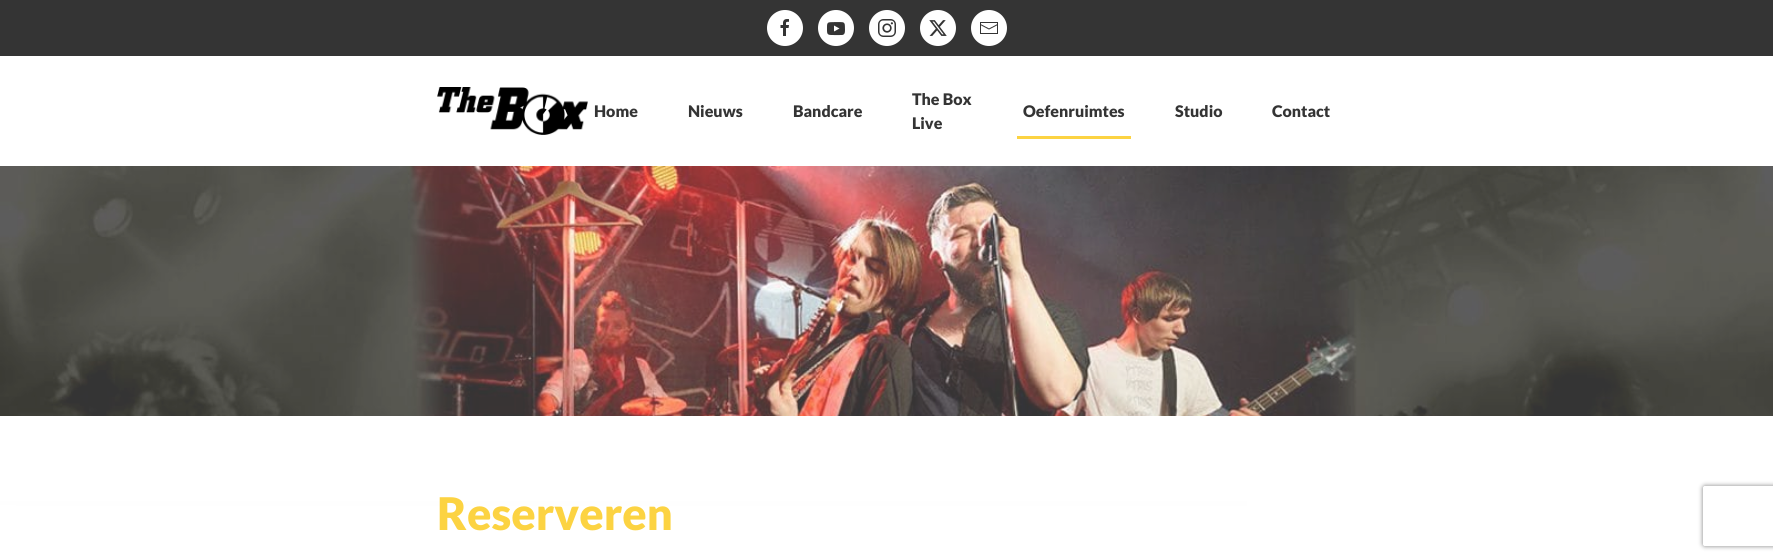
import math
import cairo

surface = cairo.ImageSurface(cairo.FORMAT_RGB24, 1773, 560)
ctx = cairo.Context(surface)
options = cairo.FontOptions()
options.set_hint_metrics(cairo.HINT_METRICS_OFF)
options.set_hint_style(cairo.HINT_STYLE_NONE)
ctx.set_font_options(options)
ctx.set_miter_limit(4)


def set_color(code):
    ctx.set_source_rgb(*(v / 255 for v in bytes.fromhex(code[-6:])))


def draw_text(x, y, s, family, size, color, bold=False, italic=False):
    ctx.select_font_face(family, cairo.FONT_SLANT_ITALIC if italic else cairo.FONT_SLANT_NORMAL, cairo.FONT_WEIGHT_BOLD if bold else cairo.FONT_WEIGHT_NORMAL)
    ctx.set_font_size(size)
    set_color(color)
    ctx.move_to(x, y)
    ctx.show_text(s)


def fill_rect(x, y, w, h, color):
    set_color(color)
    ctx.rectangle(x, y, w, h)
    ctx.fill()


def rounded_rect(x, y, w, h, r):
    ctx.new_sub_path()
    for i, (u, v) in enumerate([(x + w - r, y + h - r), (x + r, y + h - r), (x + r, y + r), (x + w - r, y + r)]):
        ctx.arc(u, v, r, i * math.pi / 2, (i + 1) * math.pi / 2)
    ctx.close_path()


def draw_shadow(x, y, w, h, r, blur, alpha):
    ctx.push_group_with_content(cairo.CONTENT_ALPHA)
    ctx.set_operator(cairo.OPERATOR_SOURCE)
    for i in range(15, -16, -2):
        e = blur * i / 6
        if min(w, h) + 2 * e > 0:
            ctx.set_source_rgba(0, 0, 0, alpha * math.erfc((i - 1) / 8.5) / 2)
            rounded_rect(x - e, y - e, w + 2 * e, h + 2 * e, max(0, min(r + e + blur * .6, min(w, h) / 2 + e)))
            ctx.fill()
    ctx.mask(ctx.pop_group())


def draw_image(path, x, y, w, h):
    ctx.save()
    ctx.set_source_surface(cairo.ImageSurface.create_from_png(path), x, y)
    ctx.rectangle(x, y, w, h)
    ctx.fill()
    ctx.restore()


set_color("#ffffff")
ctx.paint()
fill_rect(0, 0, 1773, 56, "#343434")
set_color("#ffffff")
ctx.arc(785, 28, 18, 0, 2 * math.pi)
ctx.fill()
draw_image("assets/img1.png", 780, 19, 9, 17)
ctx.arc(836, 28, 18, 0, 2 * math.pi)
ctx.fill()
draw_image("assets/img2.png", 827, 22, 18, 14)
ctx.arc(887, 28, 18, 0, 2 * math.pi)
ctx.fill()
draw_image("assets/img3.png", 878, 19, 18, 18)
ctx.arc(938, 28, 18, 0, 2 * math.pi)
ctx.fill()
draw_image("assets/img4.png", 929, 20, 18, 16)
ctx.arc(989, 28, 18, 0, 2 * math.pi)
ctx.fill()
draw_image("assets/img5.png", 980, 22, 18, 12)
draw_image("assets/img6.png", 437, 87, 151, 48)
draw_text(594, 117, "Home", "Lato Black", 16, "#343434")
draw_text(688, 117, "Nieuws", "Lato Black", 16, "#343434")
draw_text(793, 117, "Bandcare", "Lato Black", 16, "#343434")
draw_text(912, 105, "The Box", "Lato Black", 16, "#343434")
draw_text(912, 129, "Live", "Lato Black", 16, "#343434")
draw_text(1023, 117, "Oefenruimtes", "Lato Black", 16, "#343434")
fill_rect(1017, 136, 114, 3, "#fcd342")
draw_text(1175, 117, "Studio", "Lato Black", 16, "#343434")
draw_text(1272, 117, "Contact", "Lato Black", 16, "#343434")
draw_image("assets/img7.png", 0, 166, 1773, 250)
draw_image("assets/img8.png", 0, 501, 1247, 6)
draw_text(437, 530, "Reserveren", "Lato Black", 45, "#fcd342")
ctx.save()
ctx.set_fill_rule(cairo.FILL_RULE_EVEN_ODD)
ctx.new_path()
ctx.move_to(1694, 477)
ctx.line_to(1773, 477)
ctx.line_to(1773, 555)
ctx.line_to(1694, 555)
ctx.close_path()
ctx.move_to(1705, 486)
ctx.line_to(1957, 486)
ctx.curve_to(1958, 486, 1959, 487, 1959, 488)
ctx.line_to(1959, 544)
ctx.curve_to(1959, 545, 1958, 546, 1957, 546)
ctx.line_to(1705, 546)
ctx.curve_to(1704, 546, 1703, 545, 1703, 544)
ctx.line_to(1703, 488)
ctx.curve_to(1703, 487, 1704, 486, 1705, 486)
ctx.close_path()
ctx.clip()
set_color("#808080")
draw_shadow(1703, 486, 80, 60, 2, 2.5, 1)
ctx.restore()
surface.write_to_png("output.png")
